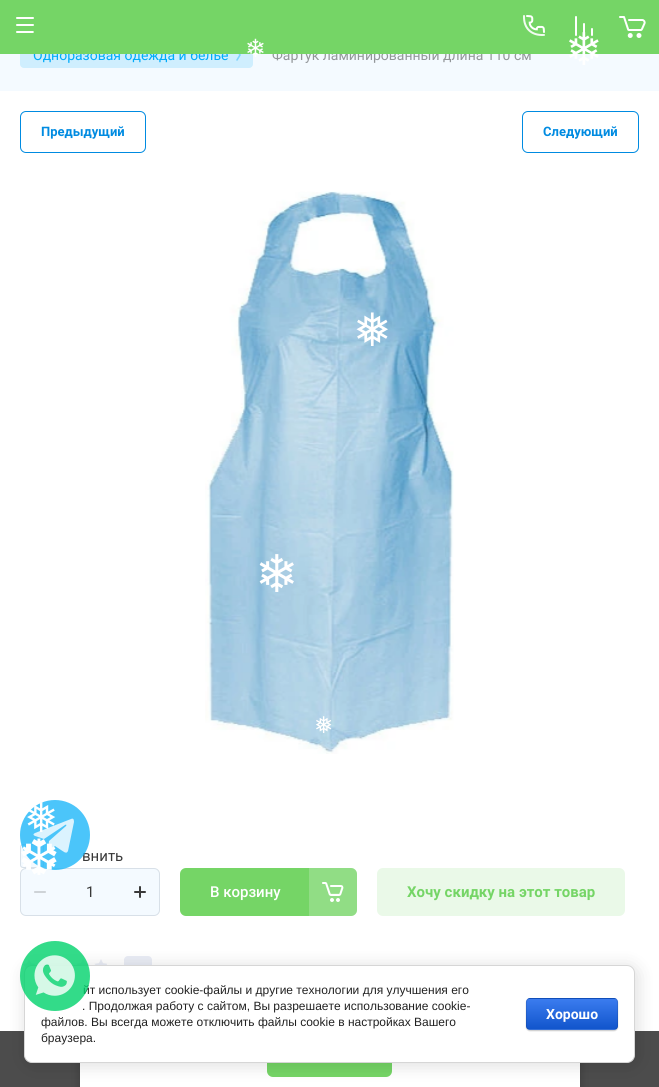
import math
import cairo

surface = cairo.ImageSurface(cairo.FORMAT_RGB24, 659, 1087)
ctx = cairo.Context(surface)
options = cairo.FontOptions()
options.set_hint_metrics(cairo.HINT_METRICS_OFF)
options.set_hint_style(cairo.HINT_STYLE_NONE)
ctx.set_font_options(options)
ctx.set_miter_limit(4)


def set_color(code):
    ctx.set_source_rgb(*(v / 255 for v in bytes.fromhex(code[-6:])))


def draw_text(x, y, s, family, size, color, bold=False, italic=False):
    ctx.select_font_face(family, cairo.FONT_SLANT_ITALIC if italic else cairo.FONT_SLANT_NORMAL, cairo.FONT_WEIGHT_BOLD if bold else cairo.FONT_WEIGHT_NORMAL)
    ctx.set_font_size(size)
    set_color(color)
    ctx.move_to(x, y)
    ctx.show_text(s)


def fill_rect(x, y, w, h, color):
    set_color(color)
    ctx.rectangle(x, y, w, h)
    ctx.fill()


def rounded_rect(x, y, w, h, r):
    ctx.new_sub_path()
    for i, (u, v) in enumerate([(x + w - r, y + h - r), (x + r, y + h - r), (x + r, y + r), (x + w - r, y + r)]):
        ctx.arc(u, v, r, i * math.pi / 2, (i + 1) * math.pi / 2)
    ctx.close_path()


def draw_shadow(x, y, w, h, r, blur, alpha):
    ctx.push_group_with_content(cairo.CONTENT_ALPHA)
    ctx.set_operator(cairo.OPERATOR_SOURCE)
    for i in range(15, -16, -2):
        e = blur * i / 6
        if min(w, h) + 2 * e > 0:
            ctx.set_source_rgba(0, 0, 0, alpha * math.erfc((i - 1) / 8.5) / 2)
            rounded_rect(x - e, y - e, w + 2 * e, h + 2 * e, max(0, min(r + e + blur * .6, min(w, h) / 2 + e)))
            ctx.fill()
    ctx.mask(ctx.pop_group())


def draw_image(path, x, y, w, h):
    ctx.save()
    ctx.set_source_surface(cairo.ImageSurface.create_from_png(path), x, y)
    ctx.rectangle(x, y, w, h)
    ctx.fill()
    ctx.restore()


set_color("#f4faff")
ctx.paint()
set_color("#cfeefe")
rounded_rect(20, 42, 233, 26, 4)
ctx.fill()
draw_text(33, 60, "Одноразовая одежда и белье", "Roboto", 14, "#00abfa")
draw_text(272, 60, "Фартук ламинированный длина 110 см", "Roboto", 14, "#929699")
fill_rect(0, 0, 659, 54, "#75d566")
draw_text(245, 57, "❄", "DejaVu Sans", 25, "#ffffff")
draw_image("assets/img3.png", 575, 16, 18, 20)
draw_text(565, 65, "❄", "DejaVu Sans", 45, "#ffffff")
draw_image("assets/img1.png", 16, 17, 18, 16)
draw_image("assets/img2.png", 523, 15, 22, 21)
draw_image("assets/img4.png", 619, 16, 27, 22)
draw_image("assets/img5.png", 236, 54, 5, 7)
fill_rect(0, 91, 659, 996, "#ffffff")
rounded_rect(20.5, 111.5, 125, 41, 5.5)
set_color("#008be1")
ctx.set_line_width(1)
ctx.stroke()
draw_text(41, 136, "Предыдущий", "Roboto", 13, "#008be1", bold=True)
rounded_rect(522.5, 111.5, 116, 41, 5.5)
ctx.stroke()
draw_text(543, 136, "Следующий", "Roboto", 13, "#008be1", bold=True)
draw_image("assets/img6.png", 205, 191, 249, 563)
set_color("#f4faff")
rounded_rect(20, 844, 24, 24, 3)
ctx.fill()
rounded_rect(20.5, 844.5, 23, 23, 2.5)
ctx.set_source_rgba(0.22, 0.298, 0.392, 0.15)
ctx.stroke()
draw_text(82, 861, "внить", "Roboto", 15, "#393939")
set_color("#f4faff")
rounded_rect(20.5, 868.5, 139, 47, 5.5)
ctx.fill_preserve()
set_color("#d8e0e8")
ctx.stroke()
draw_image("assets/img7.png", 34, 891, 12, 2)
draw_text(86, 897, "1", "Roboto", 15, "#393939")
draw_image("assets/img8.png", 134, 886, 12, 12)
set_color("#75d566")
rounded_rect(180, 868, 177, 48, 6)
ctx.fill()
draw_text(210, 897, "В корзину", "Roboto Medium", 15, "#ffffff")
ctx.set_source_rgba(1, 1, 1, 0.2)
ctx.new_path()
ctx.move_to(309, 868)
ctx.line_to(351, 868)
ctx.curve_to(354.5, 868, 357, 870.5, 357, 874)
ctx.line_to(357, 910)
ctx.curve_to(357, 913.5, 354.5, 916, 351, 916)
ctx.line_to(309, 916)
ctx.close_path()
ctx.fill()
draw_image("assets/img9.png", 322, 882, 22, 20)
set_color("#eaf9e8")
rounded_rect(377, 868, 248, 48, 6)
ctx.fill()
draw_text(407, 897, "Хочу скидку на этот товар", "Roboto", 15, "#75d566", bold=True)
draw_image("assets/img10.png", 23, 959, 84, 13)
draw_image("assets/img11.png", 124, 956, 28, 9)
ctx.set_source_rgba(0, 0, 0, 0.7)
ctx.rectangle(0, 1031, 659, 56)
ctx.fill()
draw_text(353, 346, "❅", "DejaVu Sans", 46, "#ffffff")
draw_text(255, 592, "❄", "DejaVu Sans", 52, "#ffffff")
draw_text(314, 733, "❅", "DejaVu Sans", 23, "#ffffff")
ctx.set_source_rgba(0.118, 0.714, 0.976, 0.8)
ctx.new_path()
ctx.arc(55, 835, 35, 0, 2 * math.pi)
ctx.fill()
ctx.set_source_rgba(1, 1, 1, 0.8)
ctx.new_path()
ctx.move_to(49, 841)
ctx.line_to(48, 851)
ctx.curve_to(51, 851, 53, 847, 55, 846)
ctx.line_to(64, 852)
ctx.curve_to(66, 853, 67, 853, 68, 851)
ctx.line_to(74, 822)
ctx.curve_to(74, 819, 73, 818, 71, 819)
ctx.line_to(35, 833)
ctx.curve_to(33, 834, 33, 835, 35, 836)
ctx.line_to(44, 839)
ctx.line_to(65, 825)
ctx.curve_to(66, 824, 67, 825, 66, 826)
ctx.close_path()
ctx.fill()
set_color("#000000")
draw_shadow(80, 975, 500, 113, 0, 5, 0.23)
fill_rect(80, 1063, 500, 24, "#ffffff")
set_color("#75d566")
rounded_rect(267, 1035, 125, 42, 6)
ctx.fill()
set_color("#000000")
draw_shadow(26, 967, 611, 98, 8, 9, 0.14)
set_color("#ffffff")
rounded_rect(24.5, 965.5, 610, 97, 7.5)
ctx.fill_preserve()
set_color("#d6d6d6")
ctx.stroke()
draw_text(83, 994, "йт использует cookie-файлы и другие технологии для улучшения его", "Liberation Sans", 12, "#212121")
draw_text(82, 1010, ". Продолжая работу с сайтом, Вы разрешаете использование cookie-", "Liberation Sans", 12, "#212121")
draw_image("assets/img12.png", 20, 941, 70, 70)
draw_text(24, 832, "❅", "DejaVu Sans", 41, "#ffffff")
draw_text(18, 875, "❆", "DejaVu Sans", 50, "#ffffff")
draw_text(41, 1026, "файлов. Вы всегда можете отключить файлы cookie в настройках Вашего", "Liberation Sans", 12, "#212121")
draw_text(41, 1042, "браузера.", "Liberation Sans", 12, "#212121")
set_color("#000000")
draw_shadow(526, 999, 92, 32, 4, 0.5, 0.2)
ctx.save()
rounded_rect(526, 998, 92, 32, 4)
ctx.clip()
gradient = cairo.LinearGradient(572, 969, 572, 999)
gradient.add_color_stop_rgba(0, 0.231, 0.486, 0.937, 1)
gradient.add_color_stop_rgba(1, 0.067, 0.333, 0.8, 1)
ctx.set_source(gradient)
ctx.rectangle(526, 998, 92, 1)
ctx.fill()
gradient = cairo.LinearGradient(572, 999, 572, 1029)
gradient.add_color_stop_rgba(0, 0.231, 0.486, 0.937, 1)
gradient.add_color_stop_rgba(1, 0.067, 0.333, 0.8, 1)
ctx.set_source(gradient)
ctx.rectangle(526, 999, 92, 30)
ctx.fill()
gradient = cairo.LinearGradient(572, 1029, 572, 1059)
gradient.add_color_stop_rgba(0, 0.231, 0.486, 0.937, 1)
gradient.add_color_stop_rgba(1, 0.067, 0.333, 0.8, 1)
ctx.set_source(gradient)
ctx.rectangle(526, 1029, 92, 1)
ctx.fill()
ctx.restore()
rounded_rect(526.5, 998.5, 91, 31, 3.5)
ctx.set_source_rgba(0, 0, 0, 0.1)
ctx.stroke()
draw_text(546, 1019, "Хорошо", "Roboto", 14, "#ffffff", bold=True)
surface.write_to_png("output.png")
